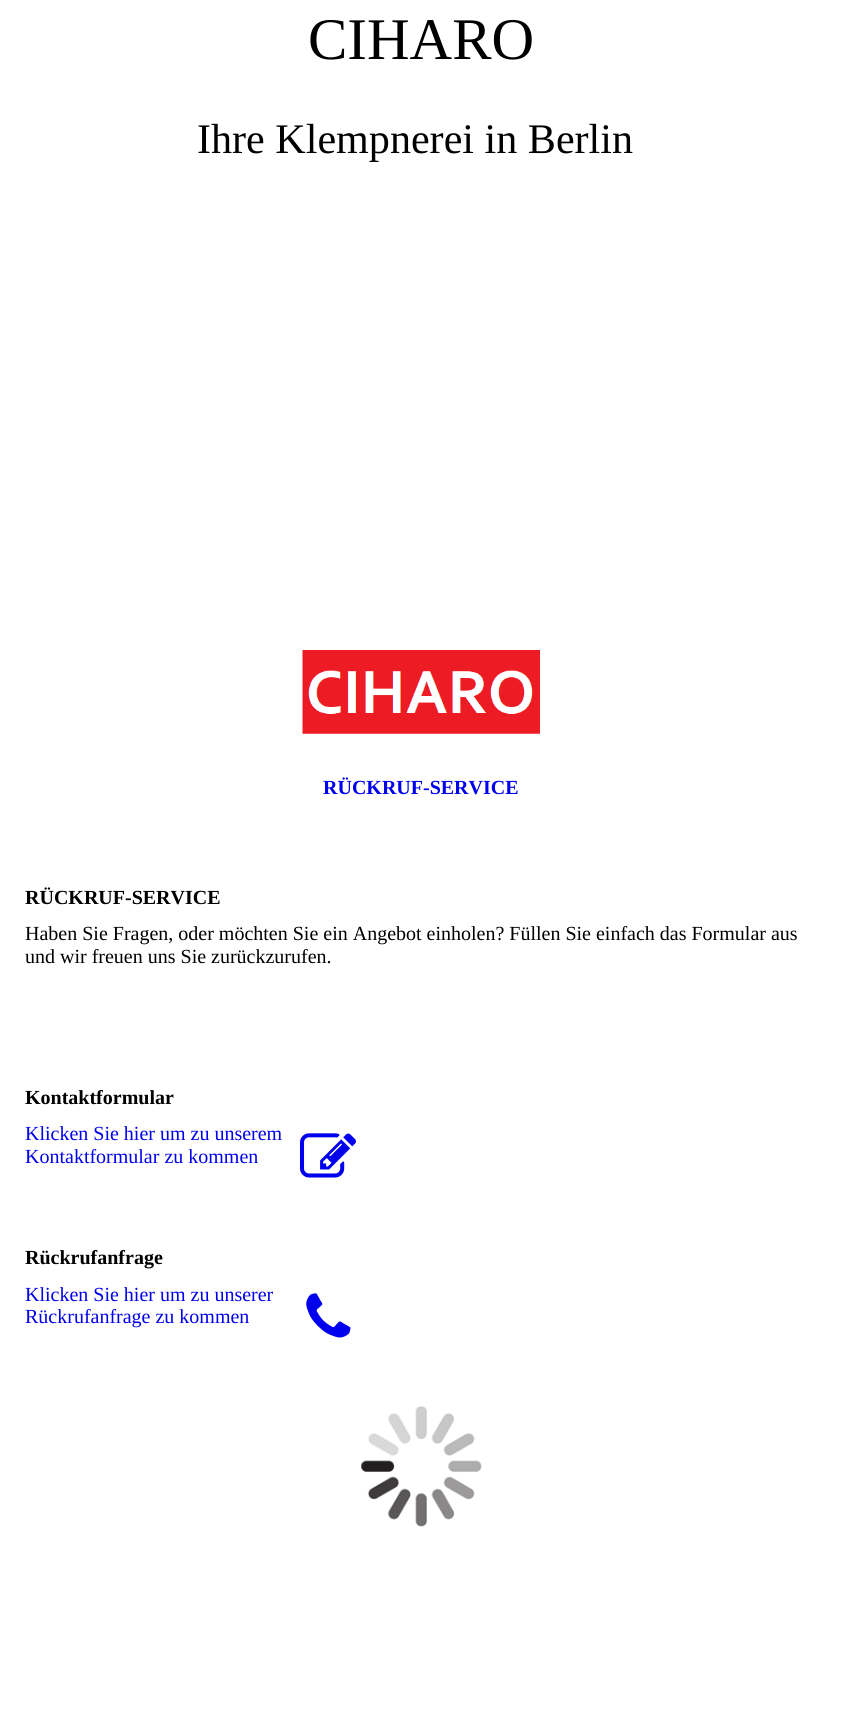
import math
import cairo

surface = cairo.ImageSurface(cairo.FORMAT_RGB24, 842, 1709)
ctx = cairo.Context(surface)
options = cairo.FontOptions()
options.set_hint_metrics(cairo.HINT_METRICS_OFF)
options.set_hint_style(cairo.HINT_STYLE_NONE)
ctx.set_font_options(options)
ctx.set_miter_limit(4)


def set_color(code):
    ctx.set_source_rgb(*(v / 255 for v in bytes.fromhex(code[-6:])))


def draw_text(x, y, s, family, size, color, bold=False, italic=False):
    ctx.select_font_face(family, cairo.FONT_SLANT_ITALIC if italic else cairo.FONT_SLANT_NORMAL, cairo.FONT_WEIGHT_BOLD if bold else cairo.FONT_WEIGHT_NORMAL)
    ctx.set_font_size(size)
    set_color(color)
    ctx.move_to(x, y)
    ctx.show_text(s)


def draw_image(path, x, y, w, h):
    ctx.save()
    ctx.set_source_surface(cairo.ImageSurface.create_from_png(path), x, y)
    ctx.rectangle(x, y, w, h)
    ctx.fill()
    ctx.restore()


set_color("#ffffff")
ctx.paint()
draw_text(308, 59, "CIHARO", "Liberation Serif", 59, "#000000")
draw_text(197, 153, "Ihre Klempnerei in Berlin", "Liberation Serif", 42.1, "#000000")
draw_image("assets/img1.png", 302, 650, 238, 84)
draw_text(323, 794, "RÜCKRUF-SERVICE", "Liberation Serif", 20, "#0000ee", bold=True)
draw_text(25, 904, "RÜCKRUF-SERVICE", "Liberation Serif", 20, "#000000", bold=True)
draw_text(25, 940, "Haben Sie Fragen, oder möchten Sie ein Angebot einholen? Füllen Sie einfach das Formular aus", "Liberation Serif", 20, "#000000")
draw_text(25, 963, "und wir freuen uns Sie zurückzurufen.", "Liberation Serif", 20, "#000000")
draw_text(25, 1104, "Kontaktformular", "Liberation Serif", 20, "#000000", bold=True)
draw_text(25, 1140, "Klicken Sie hier um zu unserem", "Liberation Serif", 20, "#0000ee")
draw_text(25, 1163, "Kontaktformular zu kommen", "Liberation Serif", 20, "#0000ee")
draw_image("assets/img2.png", 300, 1133, 56, 45)
draw_text(25, 1264, "Rückrufanfrage", "Liberation Serif", 20, "#000000", bold=True)
draw_text(25, 1301, "Klicken Sie hier um zu unserer", "Liberation Serif", 20, "#0000ee")
draw_text(25, 1323, "Rückrufanfrage zu kommen", "Liberation Serif", 20, "#0000ee")
draw_image("assets/img3.png", 306, 1293, 45, 45)
draw_image("assets/img4.png", 361, 1406, 121, 121)
surface.write_to_png("output.png")
